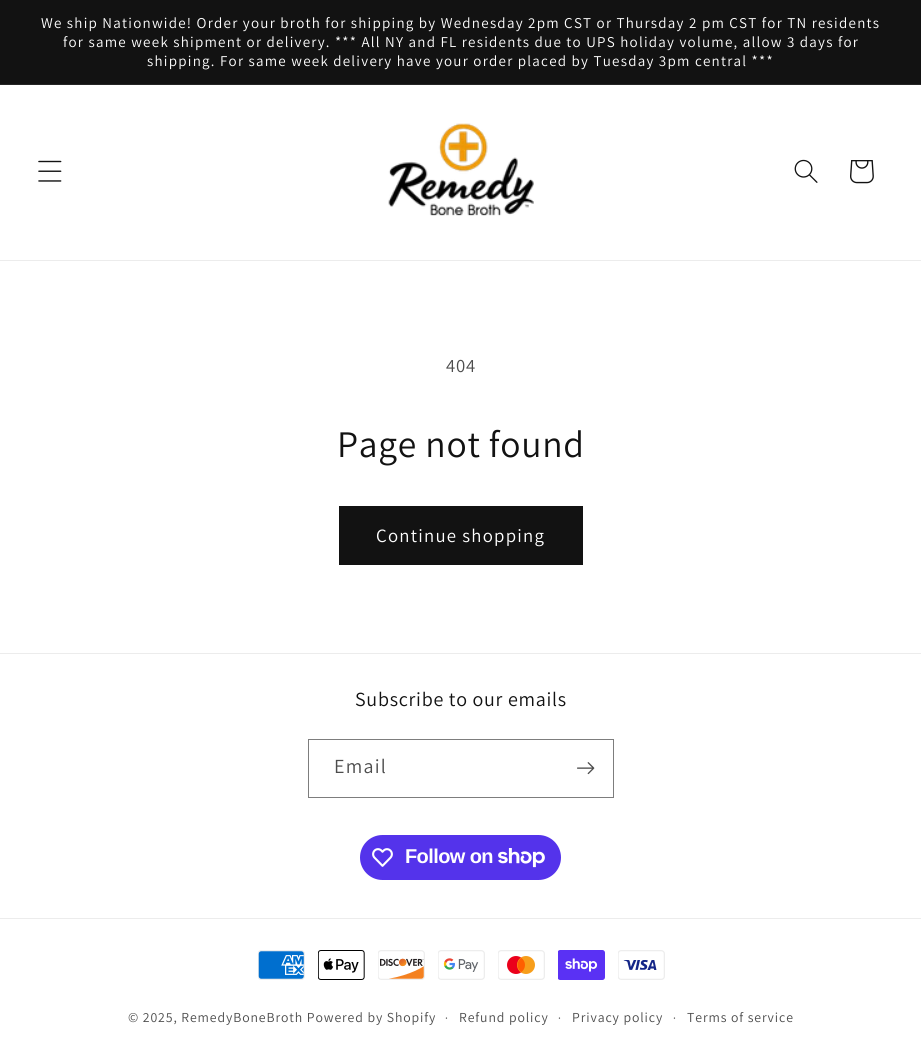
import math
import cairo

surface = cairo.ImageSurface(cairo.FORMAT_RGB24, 921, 1046)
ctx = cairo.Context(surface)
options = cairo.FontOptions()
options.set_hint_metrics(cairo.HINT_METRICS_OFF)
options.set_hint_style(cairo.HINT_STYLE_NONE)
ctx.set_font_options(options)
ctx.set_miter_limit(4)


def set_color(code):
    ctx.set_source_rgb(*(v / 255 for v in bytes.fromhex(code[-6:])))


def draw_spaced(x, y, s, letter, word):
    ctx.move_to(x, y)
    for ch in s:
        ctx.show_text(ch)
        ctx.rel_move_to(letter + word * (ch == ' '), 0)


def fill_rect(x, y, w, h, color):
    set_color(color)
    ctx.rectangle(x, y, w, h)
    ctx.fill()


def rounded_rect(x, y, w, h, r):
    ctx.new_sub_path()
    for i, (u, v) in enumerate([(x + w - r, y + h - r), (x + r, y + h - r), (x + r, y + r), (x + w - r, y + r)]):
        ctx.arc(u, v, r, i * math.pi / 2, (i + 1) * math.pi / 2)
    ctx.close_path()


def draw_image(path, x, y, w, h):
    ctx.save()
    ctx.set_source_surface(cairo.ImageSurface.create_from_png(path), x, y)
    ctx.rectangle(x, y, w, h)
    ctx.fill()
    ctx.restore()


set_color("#ffffff")
ctx.paint()
fill_rect(0, 0, 921, 84, "#121212")
fill_rect(0, 84, 921, 1, "#252525")
ctx.select_font_face("Assistant")
ctx.set_font_size(15)
set_color("#ffffff")
draw_spaced(41, 28, "We ship Nationwide! Order your broth for shipping by Wednesday 2pm CST or Thursday 2 pm CST for TN residents", 1.25, 0)
draw_spaced(63, 47, "for same week shipment or delivery. *** All NY and FL residents due to UPS holiday volume, allow 3 days for", 1.25, 0)
draw_spaced(147, 66, "shipping. For same week delivery have your order placed by Tuesday 3pm central ***", 1.25, 0)
fill_rect(0, 260, 921, 1, "#ececec")
draw_image("assets/img1.png", 38, 160, 24, 22)
draw_image("assets/img2.png", 388, 123, 146, 93)
draw_image("assets/img3.png", 794, 159, 24, 24)
draw_image("assets/img4.png", 850, 160, 24, 24)
ctx.set_font_size(18.75)
set_color("#4d4d4d")
draw_spaced(446, 372, "404", 0.75, 0)
ctx.set_font_size(37.5)
set_color("#121212")
draw_spaced(337, 457, "Page not found", 0.75, 0)
fill_rect(339, 506, 244, 59, "#121212")
ctx.set_font_size(18.75)
set_color("#ffffff")
draw_spaced(376, 542, "Continue shopping", 1.25, 0)
fill_rect(0, 653, 921, 1, "#ececec")
ctx.set_font_size(20)
set_color("#121212")
draw_spaced(355, 706, "Subscribe to our emails", 0.75, 0)
ctx.rectangle(308.5, 739.5, 305, 58)
set_color("#7d7d7d")
ctx.set_line_width(1)
ctx.stroke()
set_color("#4d4d4d")
draw_spaced(334, 773, "Email", 1.25, 0)
draw_image("assets/img5.png", 577, 762, 18, 13)
set_color("#5433eb")
rounded_rect(360, 835, 201, 45, 22.5)
ctx.fill()
draw_image("assets/img6.png", 372, 848, 21, 19)
ctx.select_font_face("Liberation Sans", cairo.FONT_SLANT_NORMAL, cairo.FONT_WEIGHT_BOLD)
set_color("#ffffff")
draw_spaced(405, 863, "Follow on", -0.6, 0)
draw_image("assets/img7.png", 498, 848, 47, 20)
fill_rect(0, 918, 921, 1, "#ececec")
draw_image("assets/img8.png", 258, 950, 47, 30)
draw_image("assets/img9.png", 318, 950, 47, 30)
draw_image("assets/img10.png", 378, 950, 47, 30)
draw_image("assets/img11.png", 438, 950, 47, 30)
draw_image("assets/img12.png", 498, 950, 47, 30)
draw_image("assets/img13.png", 558, 950, 47, 30)
draw_image("assets/img14.png", 618, 950, 47, 30)
ctx.select_font_face("Assistant")
ctx.set_font_size(13.75)
set_color("#4d4d4d")
draw_spaced(128, 1022, "© 2025, RemedyBoneBroth Powered by Shopify", 0.9, 0)
ctx.set_font_size(12)
draw_spaced(445, 1022, "·", 0.9, 0)
ctx.set_font_size(13.75)
draw_spaced(459, 1022, "Refund policy", 0.9, 0)
ctx.set_font_size(12)
draw_spaced(558, 1022, "·", 0.9, 0)
ctx.set_font_size(13.75)
draw_spaced(572, 1022, "Privacy policy", 0.9, 0)
ctx.set_font_size(12)
draw_spaced(673, 1022, "·", 0.9, 0)
ctx.set_font_size(13.75)
draw_spaced(687, 1022, "Terms of service", 0.9, 0)
surface.write_to_png("output.png")
